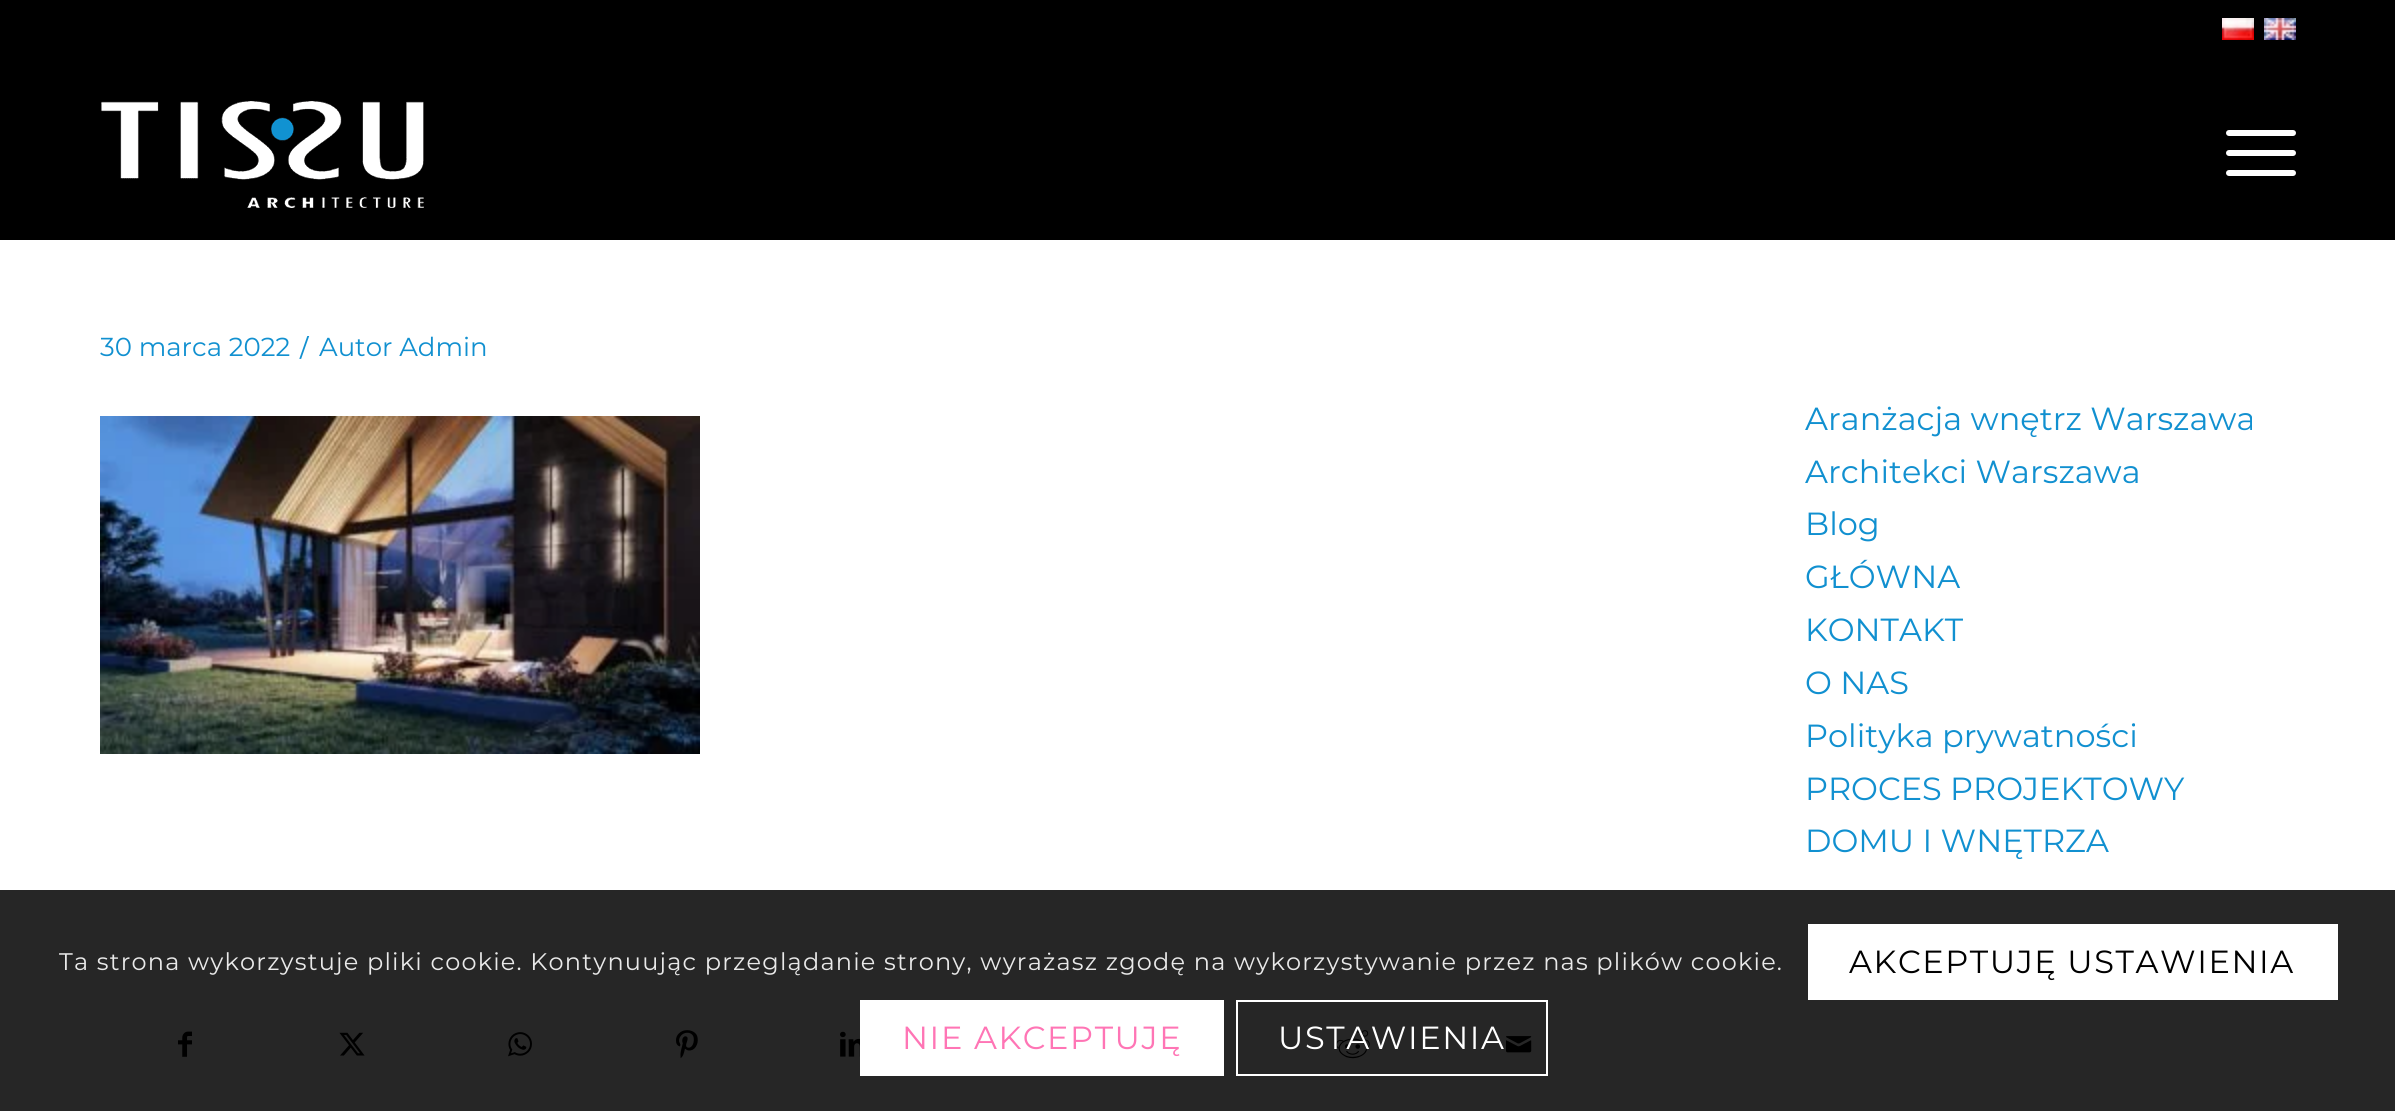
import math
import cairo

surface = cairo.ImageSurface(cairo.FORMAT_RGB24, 2395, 1111)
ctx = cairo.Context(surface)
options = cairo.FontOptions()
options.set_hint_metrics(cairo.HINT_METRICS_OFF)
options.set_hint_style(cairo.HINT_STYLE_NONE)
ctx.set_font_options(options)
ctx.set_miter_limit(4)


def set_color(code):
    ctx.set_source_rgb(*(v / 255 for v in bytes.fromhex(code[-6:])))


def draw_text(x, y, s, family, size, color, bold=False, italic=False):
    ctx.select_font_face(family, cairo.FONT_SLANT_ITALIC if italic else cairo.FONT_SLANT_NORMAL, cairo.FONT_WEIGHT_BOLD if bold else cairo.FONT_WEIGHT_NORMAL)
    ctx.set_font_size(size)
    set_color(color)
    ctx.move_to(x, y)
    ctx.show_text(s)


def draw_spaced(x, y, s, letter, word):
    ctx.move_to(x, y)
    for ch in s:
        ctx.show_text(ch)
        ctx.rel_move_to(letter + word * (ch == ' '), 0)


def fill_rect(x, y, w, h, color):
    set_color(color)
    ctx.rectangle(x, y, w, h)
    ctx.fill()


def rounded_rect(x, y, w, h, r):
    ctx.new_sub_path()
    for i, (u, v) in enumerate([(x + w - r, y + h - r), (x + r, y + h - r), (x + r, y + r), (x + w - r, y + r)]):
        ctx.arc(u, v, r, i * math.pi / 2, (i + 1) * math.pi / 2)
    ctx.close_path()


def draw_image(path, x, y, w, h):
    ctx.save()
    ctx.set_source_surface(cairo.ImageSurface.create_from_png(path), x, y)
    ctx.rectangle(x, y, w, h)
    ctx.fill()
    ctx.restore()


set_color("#ffffff")
ctx.paint()
fill_rect(0, 0, 2395, 240, "#000000")
draw_image("assets/img1.png", 2222, 18, 32, 22)
draw_image("assets/img2.png", 2264, 18, 32, 22)
draw_image("assets/img3.png", 101, 101, 323, 107)
set_color("#ffffff")
rounded_rect(2226, 150, 70, 6, 3)
ctx.fill()
rounded_rect(2226, 130, 70, 6, 3)
ctx.fill()
rounded_rect(2226, 170, 70, 6, 3)
ctx.fill()
draw_text(100, 356, "30 marca 2022", "Montserrat Thin", 26, "#1190d0")
ctx.save()
ctx.rectangle(100, 336, 1604, 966)
ctx.clip()
draw_text(300, 356, "/", "Montserrat Thin", 29, "#1190d0")
ctx.restore()
draw_text(319, 356, "Autor Admin", "Montserrat Thin", 26, "#1190d0")
draw_image("assets/img4.png", 100, 416, 600, 338)
draw_image("assets/img5.png", 178, 1031, 14, 26)
draw_image("assets/img6.png", 339, 1032, 26, 24)
draw_image("assets/img7.png", 508, 1032, 24, 25)
draw_image("assets/img8.png", 676, 1030, 22, 29)
draw_image("assets/img9.png", 840, 1031, 20, 26)
draw_image("assets/img10.png", 1336, 1030, 34, 29)
draw_image("assets/img11.png", 1506, 1036, 26, 17)
draw_text(1805, 430, "Aranżacja wnętrz Warszawa", "Montserrat Thin", 32, "#1190d0")
draw_text(1805, 483, "Architekci Warszawa", "Montserrat Thin", 32, "#1190d0")
draw_text(1805, 535, "Blog", "Montserrat Thin", 32, "#1190d0")
draw_text(1805, 588, "GŁÓWNA", "Montserrat Thin", 32, "#1190d0")
draw_text(1805, 641, "KONTAKT", "Montserrat Thin", 32, "#1190d0")
draw_text(1805, 694, "O NAS", "Montserrat Thin", 32, "#1190d0")
draw_text(1805, 747, "Polityka prywatności", "Montserrat Thin", 32, "#1190d0")
draw_text(1805, 800, "PROCES PROJEKTOWY", "Montserrat Thin", 32, "#1190d0")
draw_text(1805, 852, "DOMU I WNĘTRZA", "Montserrat Thin", 32, "#1190d0")
ctx.set_source_rgba(0, 0, 0, 0.85)
ctx.rectangle(0, 890, 2395, 221)
ctx.fill()
ctx.set_font_size(24)
set_color("#e9e9e9")
draw_spaced(59, 970, "Ta strona wykorzystuje pliki cookie. Kontynuując przeglądanie strony, wyrażasz zgodę na wykorzystywanie przez nas plików cookie.", 1.2, 0)
fill_rect(1808, 924, 530, 76, "#ffffff")
ctx.set_font_size(32)
set_color("#000000")
draw_spaced(1849, 973, "AKCEPTUJĘ USTAWIENIA", 1.6, 0)
fill_rect(860, 1000, 364, 76, "#ffffff")
set_color("#ff75b5")
draw_spaced(902, 1049, "NIE AKCEPTUJĘ", 1.6, 0)
ctx.rectangle(1237, 1001, 310, 74)
set_color("#ffffff")
ctx.stroke()
draw_spaced(1278, 1049, "USTAWIENIA", 1.6, 0)
surface.write_to_png("output.png")
